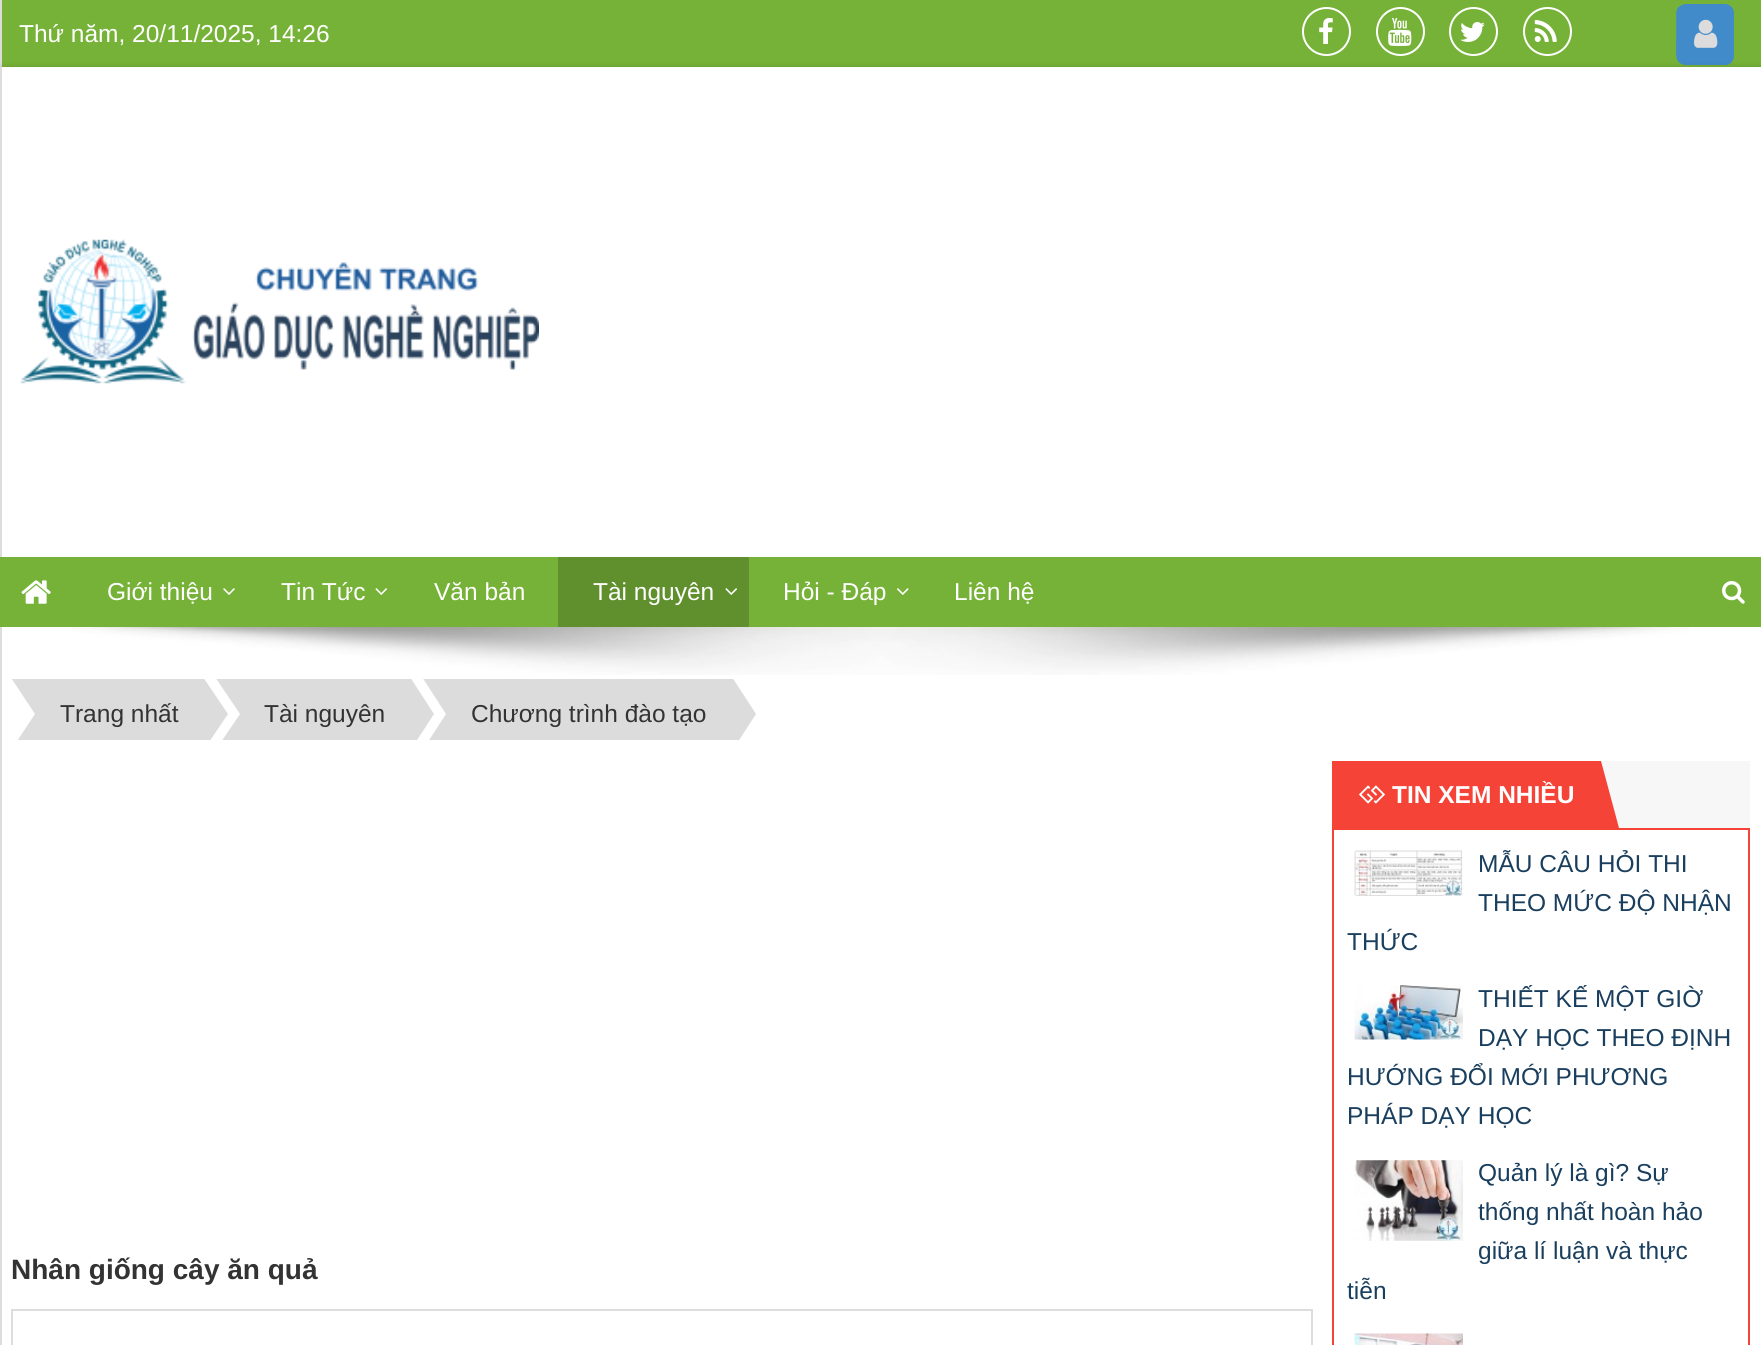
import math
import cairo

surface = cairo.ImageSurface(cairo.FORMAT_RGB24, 1761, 1345)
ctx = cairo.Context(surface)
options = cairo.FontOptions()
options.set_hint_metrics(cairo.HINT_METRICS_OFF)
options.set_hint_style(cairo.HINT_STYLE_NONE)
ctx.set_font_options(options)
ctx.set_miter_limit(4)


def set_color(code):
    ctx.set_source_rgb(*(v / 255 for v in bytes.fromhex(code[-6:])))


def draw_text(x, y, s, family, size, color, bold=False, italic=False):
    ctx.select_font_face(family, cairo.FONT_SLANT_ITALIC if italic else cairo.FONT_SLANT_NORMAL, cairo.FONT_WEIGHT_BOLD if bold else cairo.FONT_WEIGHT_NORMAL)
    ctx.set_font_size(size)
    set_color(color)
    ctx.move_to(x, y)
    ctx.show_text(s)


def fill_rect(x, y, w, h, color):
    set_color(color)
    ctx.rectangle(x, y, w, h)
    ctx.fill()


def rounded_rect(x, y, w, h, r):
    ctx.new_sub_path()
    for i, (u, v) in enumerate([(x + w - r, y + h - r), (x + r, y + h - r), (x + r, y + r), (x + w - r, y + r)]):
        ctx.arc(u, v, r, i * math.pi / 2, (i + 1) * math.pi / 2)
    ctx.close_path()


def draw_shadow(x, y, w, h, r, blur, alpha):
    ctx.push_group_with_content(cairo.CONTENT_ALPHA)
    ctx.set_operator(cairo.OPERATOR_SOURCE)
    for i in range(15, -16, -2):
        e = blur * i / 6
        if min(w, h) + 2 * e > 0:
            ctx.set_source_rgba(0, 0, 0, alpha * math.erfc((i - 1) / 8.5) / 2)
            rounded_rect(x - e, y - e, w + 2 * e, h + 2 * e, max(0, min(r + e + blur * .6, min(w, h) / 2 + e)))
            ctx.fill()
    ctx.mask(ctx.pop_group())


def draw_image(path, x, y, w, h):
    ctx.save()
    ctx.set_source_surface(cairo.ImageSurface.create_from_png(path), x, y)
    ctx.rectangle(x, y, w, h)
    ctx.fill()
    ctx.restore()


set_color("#dcdcdc")
ctx.paint()
fill_rect(2, 0, 1759, 67, "#76b237")
draw_text(19, 42, "Thứ năm, 20/11/2025, 14:26", "Liberation Sans", 24.5, "#ffffff")
ctx.new_path()
ctx.arc(1326.5, 31.5, 23.5, 0, 2 * math.pi)
ctx.stroke()
draw_image("assets/img1.png", 1319, 18, 14, 26)
ctx.arc(1400.5, 31.5, 23.5, 0, 2 * math.pi)
ctx.stroke()
draw_image("assets/img2.png", 1388, 18, 24, 28)
ctx.arc(1473.5, 31.5, 23.5, 0, 2 * math.pi)
ctx.stroke()
draw_image("assets/img3.png", 1460, 22, 25, 20)
ctx.arc(1547.5, 31.5, 23.5, 0, 2 * math.pi)
ctx.stroke()
draw_image("assets/img4.png", 1534, 20, 23, 22)
set_color("#428bca")
rounded_rect(1677, 4, 57, 61, 9)
ctx.fill()
ctx.new_path()
ctx.move_to(1730.5, 61)
ctx.curve_to(1727.5, 64, 1722.5, 63, 1719, 63)
ctx.line_to(1705.5, 63)
ctx.curve_to(1673.5, 63, 1678, 66.5, 1678, 34)
ctx.line_to(1678, 19.5)
ctx.curve_to(1678, 15.5, 1677, 10.5, 1680.5, 7.5)
ctx.set_line_width(3.5)
ctx.stroke()
draw_image("assets/img5.png", 1694, 19, 24, 29)
set_color("#000000")
draw_shadow(0, 67, 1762, 490, 0, 3.5, 0.15)
fill_rect(0, 67, 2, 490, "#dcdcdc")
fill_rect(2, 67, 1759, 490, "#ffffff")
draw_image("assets/img6.png", 19, 239, 520, 145)
fill_rect(0, 557, 1761, 70, "#76b237")
draw_image("assets/img7.png", 21, 580, 30, 24)
draw_text(107, 600, "Giới thiệu", "Liberation Sans", 24.5, "#ffffff")
draw_image("assets/img8.png", 223, 588, 12, 7)
draw_text(281, 600, "Tin Tức", "Liberation Sans", 24.5, "#ffffff")
draw_image("assets/img9.png", 375, 588, 12, 7)
draw_text(434, 600, "Văn bản", "Liberation Sans", 24.5, "#ffffff")
fill_rect(558, 557, 191, 70, "#60902e")
draw_text(593, 600, "Tài nguyên", "Liberation Sans", 24.5, "#ffffff")
draw_image("assets/img10.png", 725, 588, 12, 7)
draw_text(783, 600, "Hỏi - Đáp", "Liberation Sans", 24.5, "#ffffff")
draw_image("assets/img11.png", 897, 588, 12, 7)
draw_text(954, 600, "Liên hệ", "Liberation Sans", 24.5, "#ffffff")
draw_image("assets/img12.png", 1722, 581, 23, 23)
fill_rect(2, 627, 1759, 718, "#ffffff")
draw_image("assets/img13.png", 72, 627, 1617, 48)
fill_rect(35, 679, 168, 61, "#dcdcdc")
ctx.save()
ctx.rectangle(11, 679, 1741, 61)
ctx.clip()
ctx.new_path()
ctx.move_to(10.5, 677)
ctx.line_to(35, 677)
ctx.line_to(35, 714)
ctx.close_path()
ctx.move_to(35, 751)
ctx.line_to(10.5, 751)
ctx.line_to(35, 714)
ctx.close_path()
ctx.fill()
ctx.restore()
draw_text(60, 722, "Trang nhất", "Liberation Sans", 24.5, "#333333")
ctx.save()
ctx.rectangle(11, 679, 1741, 61)
ctx.clip()
set_color("#dcdcdc")
ctx.new_path()
ctx.move_to(203, 751)
ctx.line_to(203, 677)
ctx.line_to(228, 714)
ctx.close_path()
ctx.fill()
ctx.restore()
fill_rect(240, 679, 170, 61, "#dcdcdc")
ctx.save()
ctx.rectangle(11, 679, 1741, 61)
ctx.clip()
ctx.new_path()
ctx.move_to(215, 677)
ctx.line_to(240, 677)
ctx.line_to(240, 714)
ctx.close_path()
ctx.move_to(240, 751)
ctx.line_to(215, 751)
ctx.line_to(240, 714)
ctx.close_path()
ctx.fill()
ctx.restore()
draw_text(264, 722, "Tài nguyên", "Liberation Sans", 24.5, "#333333")
ctx.save()
ctx.rectangle(11, 679, 1741, 61)
ctx.clip()
set_color("#dcdcdc")
ctx.new_path()
ctx.move_to(410, 751)
ctx.line_to(410, 677)
ctx.line_to(434, 714)
ctx.close_path()
ctx.fill()
ctx.restore()
fill_rect(446, 679, 286, 61, "#dcdcdc")
ctx.save()
ctx.rectangle(11, 679, 1741, 61)
ctx.clip()
ctx.new_path()
ctx.move_to(422, 677)
ctx.line_to(446, 677)
ctx.line_to(446, 714)
ctx.close_path()
ctx.move_to(446, 751)
ctx.line_to(422, 751)
ctx.line_to(446, 714)
ctx.close_path()
ctx.fill()
ctx.restore()
draw_text(471, 722, "Chương trình đào tạo", "Liberation Sans", 24.5, "#333333")
ctx.save()
ctx.rectangle(11, 679, 1741, 61)
ctx.clip()
set_color("#dcdcdc")
ctx.new_path()
ctx.move_to(732, 751)
ctx.line_to(732, 677)
ctx.line_to(756, 714)
ctx.close_path()
ctx.fill()
ctx.restore()
draw_text(11, 1279, "Nhân giống cây ăn quả", "Liberation Sans", 28, "#333333", bold=True)
ctx.rectangle(12, 1310, 1300, 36)
set_color("#dddddd")
ctx.set_line_width(2)
ctx.stroke()
fill_rect(1601, 761, 149, 67, "#f7f7f7")
fill_rect(1332, 761, 269, 67, "#f54337")
draw_image("assets/img14.png", 1359, 785, 26, 19)
draw_text(1392, 803, "TIN XEM NHIỀU", "Liberation Sans", 24.5, "#ffffff", bold=True)
set_color("#f54337")
ctx.new_path()
ctx.move_to(1619, 828)
ctx.line_to(1601, 828)
ctx.line_to(1601, 761)
ctx.close_path()
ctx.fill()
ctx.rectangle(1333, 829, 416, 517)
ctx.stroke()
draw_text(1478, 872, "MẪU CÂU HỎI THI", "Liberation Sans", 24.5, "#1a3f5e")
draw_text(1478, 911, "THEO MỨC ĐỘ NHẬN", "Liberation Sans", 24.5, "#1a3f5e")
draw_text(1347, 950, "THỨC", "Liberation Sans", 24.5, "#1a3f5e")
draw_image("assets/img15.png", 1354, 850, 109, 46)
draw_text(1478, 1007, "THIẾT KẾ MỘT GIỜ", "Liberation Sans", 24.5, "#1a3f5e")
draw_text(1478, 1046, "DẠY HỌC THEO ĐỊNH", "Liberation Sans", 24.5, "#1a3f5e")
draw_text(1347, 1085, "HƯỚNG ĐỔI MỚI PHƯƠNG", "Liberation Sans", 24.5, "#1a3f5e")
draw_text(1347, 1124, "PHÁP DẠY HỌC", "Liberation Sans", 24.5, "#1a3f5e")
draw_image("assets/img16.png", 1354, 985, 109, 55)
draw_image("assets/img17.png", 1354, 1160, 109, 81)
draw_text(1478, 1181, "Quản lý là gì? Sự", "Liberation Sans", 24.5, "#1a3f5e")
draw_text(1478, 1220, "thống nhất hoàn hảo", "Liberation Sans", 24.5, "#1a3f5e")
draw_text(1478, 1259, "giữa lí luận và thực", "Liberation Sans", 24.5, "#1a3f5e")
draw_text(1347, 1299, "tiễn", "Liberation Sans", 24.5, "#1a3f5e")
draw_image("assets/img18.png", 1354, 1333, 109, 12)
surface.write_to_png("output.png")
